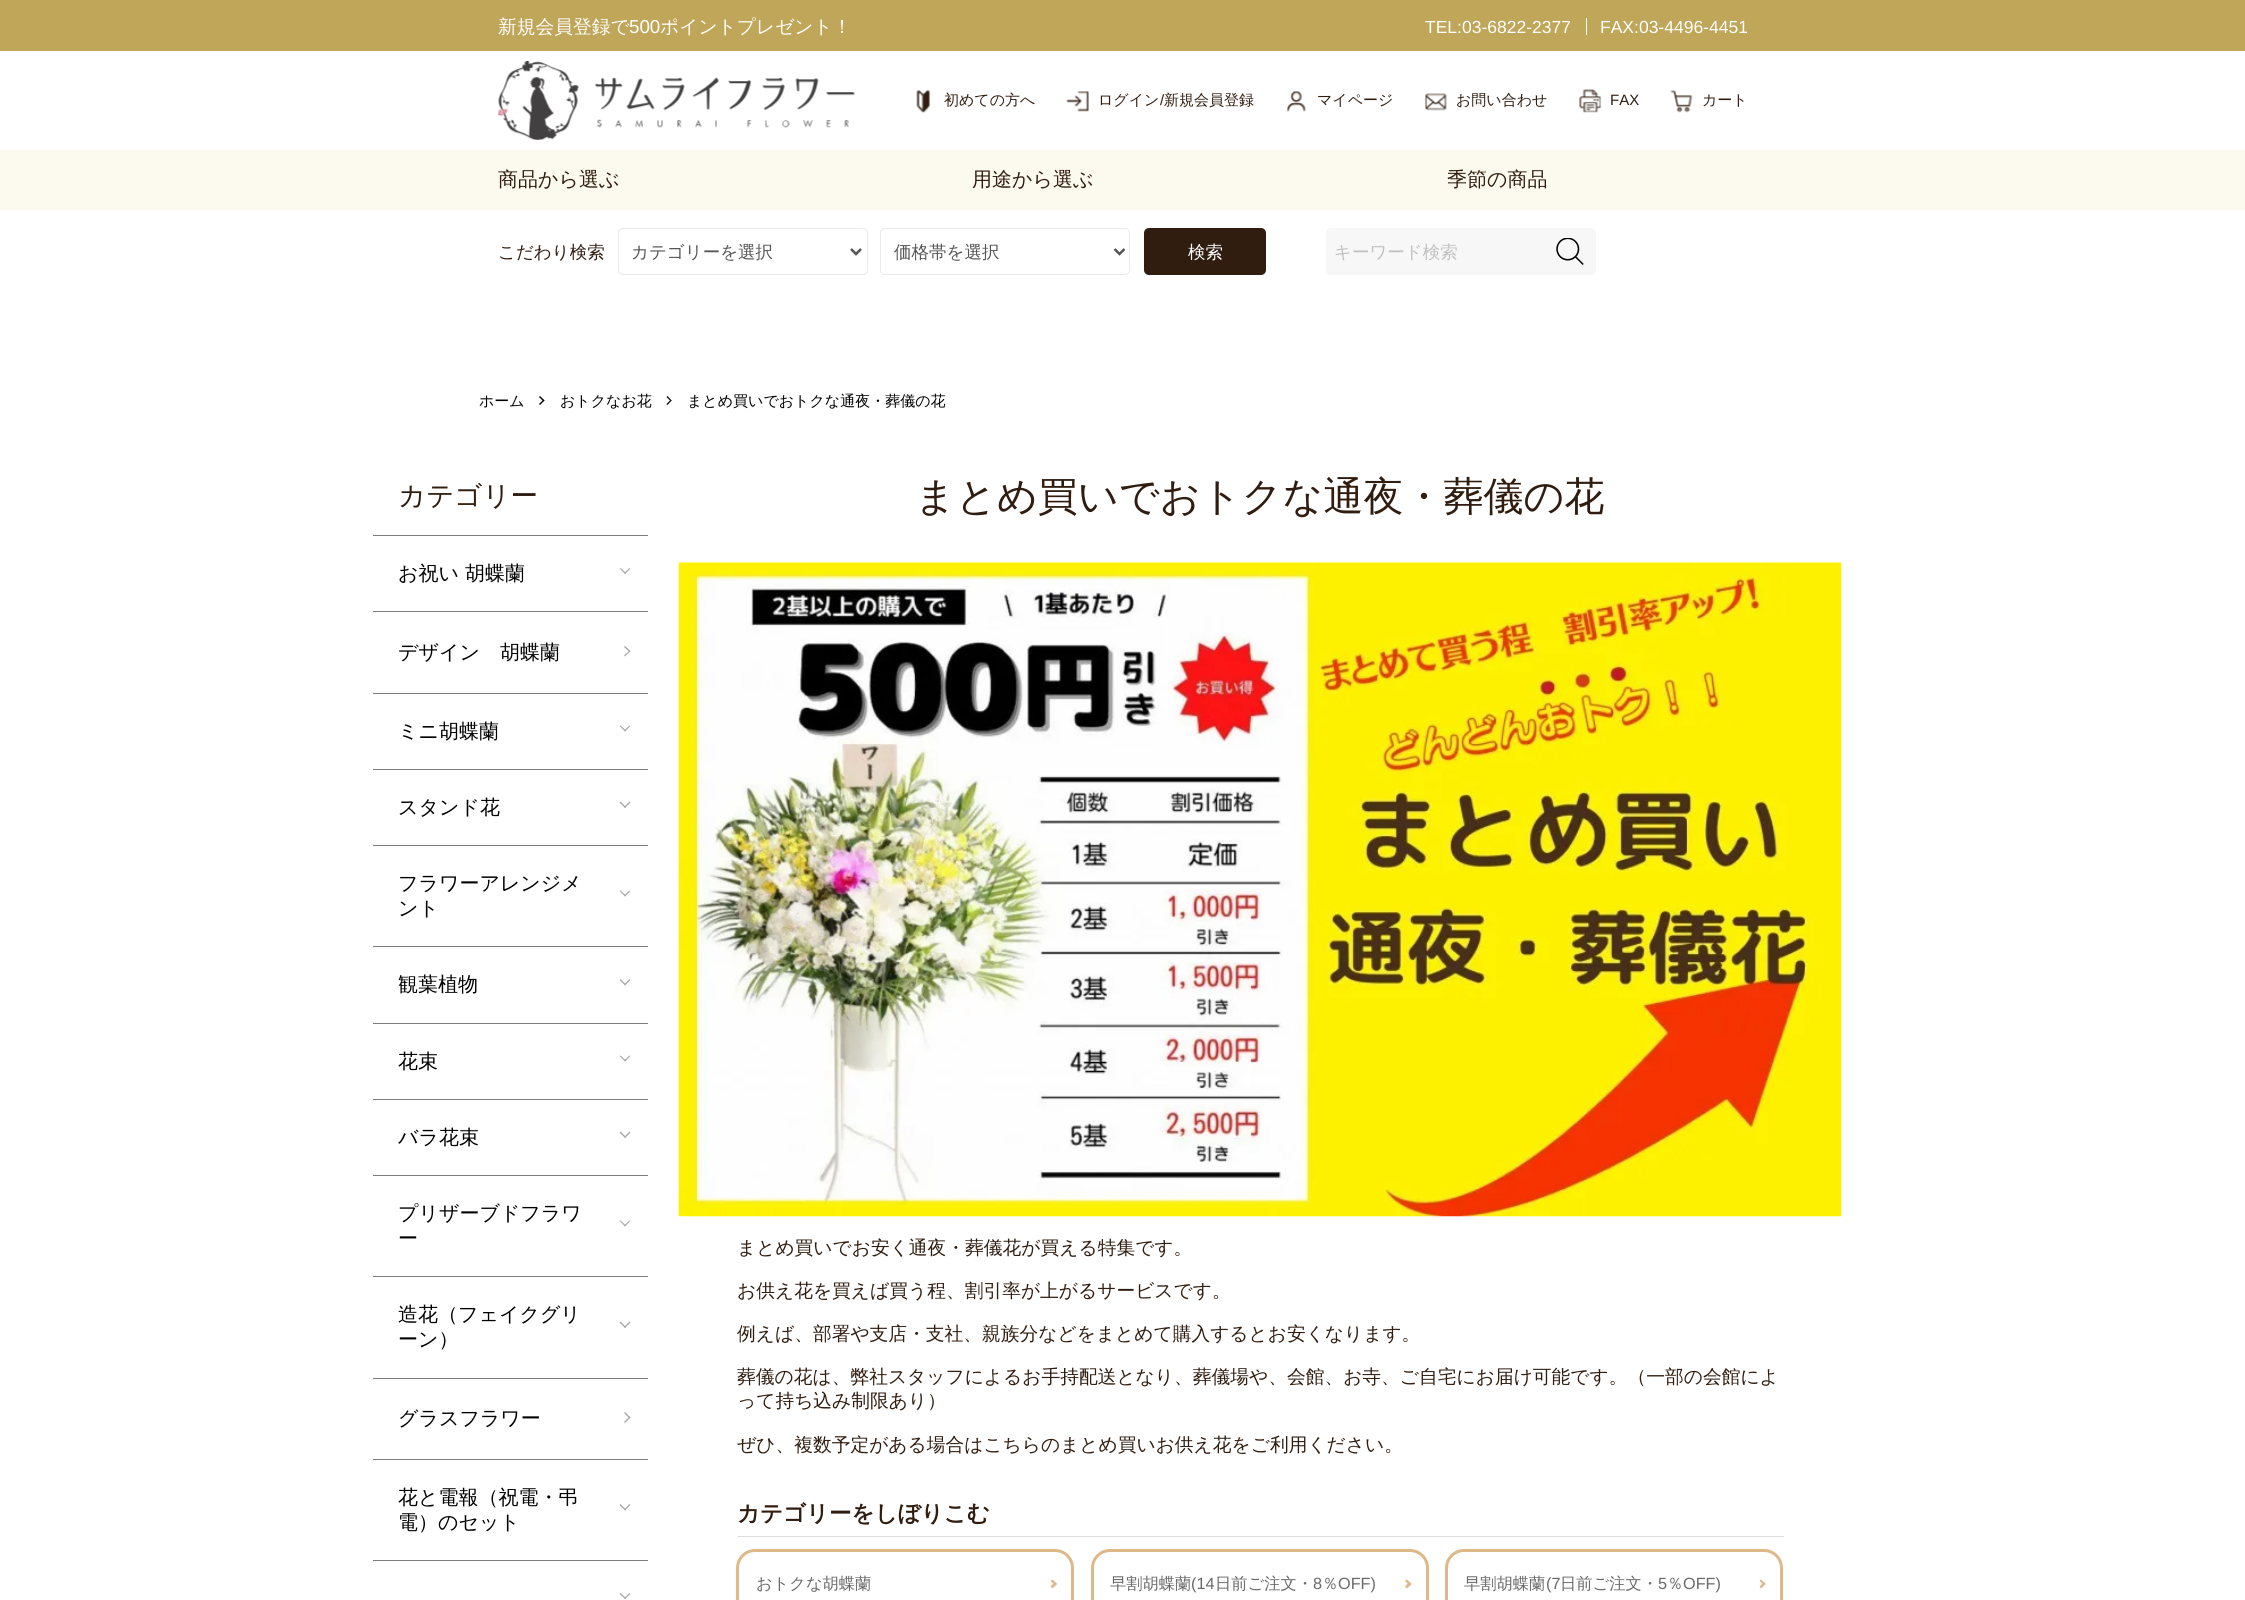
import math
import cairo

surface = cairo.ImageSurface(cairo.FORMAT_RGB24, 2245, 1600)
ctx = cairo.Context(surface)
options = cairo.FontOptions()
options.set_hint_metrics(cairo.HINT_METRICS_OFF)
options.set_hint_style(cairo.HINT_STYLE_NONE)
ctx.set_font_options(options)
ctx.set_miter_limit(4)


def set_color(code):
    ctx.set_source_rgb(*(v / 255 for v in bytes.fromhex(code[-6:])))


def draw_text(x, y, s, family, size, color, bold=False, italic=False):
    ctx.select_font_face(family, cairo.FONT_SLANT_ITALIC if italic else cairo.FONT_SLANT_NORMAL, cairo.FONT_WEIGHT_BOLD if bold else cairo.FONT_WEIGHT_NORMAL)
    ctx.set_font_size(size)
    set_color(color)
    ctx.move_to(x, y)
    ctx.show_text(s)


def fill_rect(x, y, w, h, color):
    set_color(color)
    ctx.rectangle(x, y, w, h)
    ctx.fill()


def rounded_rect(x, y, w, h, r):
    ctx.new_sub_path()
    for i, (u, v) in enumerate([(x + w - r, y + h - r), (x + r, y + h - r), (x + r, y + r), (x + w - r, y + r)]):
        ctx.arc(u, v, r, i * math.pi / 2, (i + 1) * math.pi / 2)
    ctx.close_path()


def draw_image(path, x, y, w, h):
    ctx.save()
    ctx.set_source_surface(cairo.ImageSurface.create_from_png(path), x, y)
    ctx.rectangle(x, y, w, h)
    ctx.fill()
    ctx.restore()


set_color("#ffffff")
ctx.paint()
fill_rect(0, 0, 2245, 51, "#bfa658")
draw_text(498, 33, "新規会員登録で", "WenQuanYi Zen Hei Medium", 18.75, "#ffffff")
draw_text(629, 33, "500", "Liberation Sans", 18.75, "#ffffff")
draw_text(660, 33, "ポイントプレゼント！", "WenQuanYi Zen Hei Medium", 18.75, "#ffffff")
draw_text(1425, 33, "TEL:03-6822-2377", "Liberation Sans", 17.5, "#ffffff")
fill_rect(1586, 18, 1, 17, "#ffffff")
draw_text(1600, 33, "FAX:03-4496-4451", "Liberation Sans", 17.5, "#ffffff")
draw_image("assets/img1.png", 498, 61, 357, 79)
draw_image("assets/img2.png", 916, 90, 15, 23)
draw_text(944, 105, "初めての方へ", "WenQuanYi Zen Hei Medium", 15, "#301d10")
draw_image("assets/img3.png", 1066, 91, 23, 21)
draw_text(1098, 105, "ログイン", "WenQuanYi Zen Hei Medium", 15, "#301d10")
draw_text(1160, 105, "/", "Liberation Sans", 15, "#301d10")
draw_text(1164, 105, "新規会員登録", "WenQuanYi Zen Hei Medium", 15, "#301d10")
draw_image("assets/img4.png", 1286, 91, 20, 21)
draw_text(1317, 105, "マイページ", "WenQuanYi Zen Hei Medium", 15, "#301d10")
draw_image("assets/img5.png", 1424, 93, 23, 18)
draw_text(1456, 105, "お問い合わせ", "WenQuanYi Zen Hei Medium", 15, "#301d10")
draw_image("assets/img6.png", 1579, 89, 23, 24)
draw_text(1610, 105, "FAX", "Liberation Sans", 15, "#301d10")
draw_image("assets/img7.png", 1670, 90, 23, 23)
draw_text(1702, 105, "カート", "WenQuanYi Zen Hei Medium", 15, "#301d10")
fill_rect(0, 150, 2245, 60, "#fcf9ef")
draw_text(498, 186, "商品から選ぶ", "WenQuanYi Zen Hei Medium", 20, "#301d10")
draw_text(972, 186, "用途から選ぶ", "WenQuanYi Zen Hei Medium", 20, "#301d10")
draw_text(1447, 186, "季節の商品", "WenQuanYi Zen Hei Medium", 20, "#301d10")
draw_text(498, 258, "こだわり検索", "WenQuanYi Zen Hei Medium", 17.5, "#301d10")
rounded_rect(618.5, 228.5, 249, 46, 4.5)
set_color("#eaeaea")
ctx.set_line_width(1)
ctx.stroke()
ctx.new_path()
ctx.move_to(851, 249)
ctx.line_to(856, 254)
ctx.line_to(861, 249)
set_color("#555555")
ctx.set_line_width(2.5)
ctx.stroke()
draw_text(631, 258, "カテゴリーを選択", "WenQuanYi Zen Hei Medium", 17.5, "#555555")
rounded_rect(880.5, 228.5, 249, 46, 4.5)
set_color("#eaeaea")
ctx.set_line_width(1)
ctx.stroke()
ctx.new_path()
ctx.move_to(1114.5, 249)
ctx.line_to(1119.5, 254)
ctx.line_to(1124.5, 249)
set_color("#555555")
ctx.set_line_width(2.5)
ctx.stroke()
draw_text(894, 258, "価格帯を選択", "WenQuanYi Zen Hei Medium", 17.5, "#555555")
set_color("#301d10")
rounded_rect(1144, 228, 122, 47, 5)
ctx.fill()
draw_text(1188, 258, "検索", "WenQuanYi Zen Hei Medium", 17.5, "#ffffff")
set_color("#f7f7f7")
rounded_rect(1326, 228, 270, 47, 4)
ctx.fill()
draw_text(1334, 258, "キーワード検索", "WenQuanYi Zen Hei Medium", 17.5, "#c1c1c1")
draw_image("assets/img8.png", 1556, 238, 28, 27)
draw_text(479, 406, "ホーム", "WenQuanYi Zen Hei Medium", 15, "#000000")
ctx.new_path()
ctx.move_to(539, 397)
ctx.line_to(540, 396)
ctx.line_to(544.5, 400.5)
ctx.line_to(543.5, 401.5)
ctx.close_path()
ctx.fill()
ctx.new_path()
ctx.move_to(539, 404)
ctx.line_to(543.5, 399.5)
ctx.line_to(544.5, 400.5)
ctx.line_to(540, 405)
ctx.close_path()
ctx.fill()
draw_text(560, 406, "おトクなお花", "WenQuanYi Zen Hei Medium", 15, "#000000")
ctx.new_path()
ctx.move_to(666.5, 397)
ctx.line_to(667.5, 396)
ctx.line_to(671.5, 400.5)
ctx.line_to(671, 401.5)
ctx.close_path()
ctx.fill()
ctx.new_path()
ctx.move_to(666.5, 404)
ctx.line_to(671, 399.5)
ctx.line_to(671.5, 400.5)
ctx.line_to(667.5, 405)
ctx.close_path()
ctx.fill()
draw_text(687, 406, "まとめ買いでおトクな通夜・葬儀の花", "WenQuanYi Zen Hei Medium", 15, "#000000")
draw_text(398, 505, "カテゴリー", "WenQuanYi Zen Hei Medium", 27.5, "#301d10")
fill_rect(373, 535, 275, 1, "#7d7d7d")
draw_text(398, 580, "お祝い 胡蝶蘭", "WenQuanYi Zen Hei Medium", 20, "#000000")
set_color("#aaaaaa")
ctx.new_path()
ctx.move_to(629.5, 568)
ctx.line_to(630.5, 568.5)
ctx.line_to(625, 574)
ctx.line_to(624, 573)
ctx.close_path()
ctx.fill()
ctx.new_path()
ctx.move_to(620.5, 568)
ctx.line_to(626, 573)
ctx.line_to(625, 574)
ctx.line_to(619.5, 568.5)
ctx.close_path()
ctx.fill()
fill_rect(373, 611, 275, 1, "#7d7d7d")
draw_text(398, 659, "デザイン　胡蝶蘭", "WenQuanYi Zen Hei Medium", 20, "#000000")
set_color("#aaaaaa")
ctx.new_path()
ctx.move_to(624, 647)
ctx.line_to(625, 646)
ctx.line_to(630.5, 651)
ctx.line_to(629.5, 652)
ctx.close_path()
ctx.fill()
ctx.new_path()
ctx.move_to(624, 655.5)
ctx.line_to(629.5, 650.5)
ctx.line_to(630.5, 651)
ctx.line_to(625, 656.5)
ctx.close_path()
ctx.fill()
fill_rect(373, 693, 275, 1, "#7d7d7d")
draw_text(398, 738, "ミニ胡蝶蘭", "WenQuanYi Zen Hei Medium", 20, "#000000")
set_color("#aaaaaa")
ctx.new_path()
ctx.move_to(629.5, 725.5)
ctx.line_to(630.5, 726)
ctx.line_to(625, 731.5)
ctx.line_to(624, 730.5)
ctx.close_path()
ctx.fill()
ctx.new_path()
ctx.move_to(620.5, 725.5)
ctx.line_to(626, 730.5)
ctx.line_to(625, 731.5)
ctx.line_to(619.5, 726)
ctx.close_path()
ctx.fill()
fill_rect(373, 769, 275, 1, "#7d7d7d")
draw_text(398, 814, "スタンド花", "WenQuanYi Zen Hei Medium", 20, "#000000")
set_color("#aaaaaa")
ctx.new_path()
ctx.move_to(629.5, 801.5)
ctx.line_to(630.5, 802.5)
ctx.line_to(625, 808)
ctx.line_to(624, 807)
ctx.close_path()
ctx.fill()
ctx.new_path()
ctx.move_to(620.5, 801.5)
ctx.line_to(626, 807)
ctx.line_to(625, 808)
ctx.line_to(619.5, 802.5)
ctx.close_path()
ctx.fill()
fill_rect(373, 845, 275, 1, "#7d7d7d")
draw_text(398, 890, "フラワーアレンジメ", "WenQuanYi Zen Hei Medium", 20, "#000000")
set_color("#aaaaaa")
ctx.new_path()
ctx.move_to(629.5, 890.5)
ctx.line_to(630.5, 891)
ctx.line_to(625, 896.5)
ctx.line_to(624, 895.5)
ctx.close_path()
ctx.fill()
ctx.new_path()
ctx.move_to(620.5, 890.5)
ctx.line_to(626, 895.5)
ctx.line_to(625, 896.5)
ctx.line_to(619.5, 891)
ctx.close_path()
ctx.fill()
draw_text(398, 915, "ント", "WenQuanYi Zen Hei Medium", 20, "#000000")
fill_rect(373, 946, 275, 1, "#7d7d7d")
draw_text(398, 991, "観葉植物", "WenQuanYi Zen Hei Medium", 20, "#000000")
set_color("#aaaaaa")
ctx.new_path()
ctx.move_to(629.5, 979)
ctx.line_to(630.5, 980)
ctx.line_to(625, 985.5)
ctx.line_to(624, 984.5)
ctx.close_path()
ctx.fill()
ctx.new_path()
ctx.move_to(620.5, 979)
ctx.line_to(626, 984.5)
ctx.line_to(625, 985.5)
ctx.line_to(619.5, 980)
ctx.close_path()
ctx.fill()
fill_rect(373, 1023, 275, 1, "#7d7d7d")
draw_text(398, 1068, "花束", "WenQuanYi Zen Hei Medium", 20, "#000000")
set_color("#aaaaaa")
ctx.new_path()
ctx.move_to(629.5, 1055.5)
ctx.line_to(630.5, 1056)
ctx.line_to(625, 1061.5)
ctx.line_to(624, 1060.5)
ctx.close_path()
ctx.fill()
ctx.new_path()
ctx.move_to(620.5, 1055.5)
ctx.line_to(626, 1060.5)
ctx.line_to(625, 1061.5)
ctx.line_to(619.5, 1056)
ctx.close_path()
ctx.fill()
fill_rect(373, 1099, 275, 1, "#7d7d7d")
draw_text(398, 1144, "バラ花束", "WenQuanYi Zen Hei Medium", 20, "#000000")
set_color("#aaaaaa")
ctx.new_path()
ctx.move_to(629.5, 1131.5)
ctx.line_to(630.5, 1132.5)
ctx.line_to(625, 1138)
ctx.line_to(624, 1137)
ctx.close_path()
ctx.fill()
ctx.new_path()
ctx.move_to(620.5, 1131.5)
ctx.line_to(626, 1137)
ctx.line_to(625, 1138)
ctx.line_to(619.5, 1132.5)
ctx.close_path()
ctx.fill()
fill_rect(373, 1175, 275, 1, "#7d7d7d")
draw_text(398, 1220, "プリザーブドフラワ", "WenQuanYi Zen Hei Medium", 20, "#000000")
set_color("#aaaaaa")
ctx.new_path()
ctx.move_to(629.5, 1220.5)
ctx.line_to(630.5, 1221)
ctx.line_to(625, 1226.5)
ctx.line_to(624, 1225.5)
ctx.close_path()
ctx.fill()
ctx.new_path()
ctx.move_to(620.5, 1220.5)
ctx.line_to(626, 1225.5)
ctx.line_to(625, 1226.5)
ctx.line_to(619.5, 1221)
ctx.close_path()
ctx.fill()
draw_text(398, 1245, "ー", "WenQuanYi Zen Hei Medium", 20, "#000000")
fill_rect(373, 1276, 275, 1, "#7d7d7d")
draw_text(398, 1321, "造花（フェイクグリ", "WenQuanYi Zen Hei Medium", 20, "#000000")
set_color("#aaaaaa")
ctx.new_path()
ctx.move_to(629.5, 1321.5)
ctx.line_to(630.5, 1322.5)
ctx.line_to(625, 1328)
ctx.line_to(624, 1327)
ctx.close_path()
ctx.fill()
ctx.new_path()
ctx.move_to(620.5, 1321.5)
ctx.line_to(626, 1327)
ctx.line_to(625, 1328)
ctx.line_to(619.5, 1322.5)
ctx.close_path()
ctx.fill()
draw_text(398, 1346, "ーン）", "WenQuanYi Zen Hei Medium", 20, "#000000")
fill_rect(373, 1378, 275, 1, "#7d7d7d")
draw_text(398, 1425, "グラスフラワー", "WenQuanYi Zen Hei Medium", 20, "#000000")
set_color("#aaaaaa")
ctx.new_path()
ctx.move_to(624, 1413)
ctx.line_to(625, 1412)
ctx.line_to(630.5, 1417.5)
ctx.line_to(629.5, 1418.5)
ctx.close_path()
ctx.fill()
ctx.new_path()
ctx.move_to(624, 1422)
ctx.line_to(629.5, 1416.5)
ctx.line_to(630.5, 1417.5)
ctx.line_to(625, 1423)
ctx.close_path()
ctx.fill()
fill_rect(373, 1459, 275, 1, "#7d7d7d")
draw_text(398, 1504, "花と電報（祝電・弔", "WenQuanYi Zen Hei Medium", 20, "#000000")
set_color("#aaaaaa")
ctx.new_path()
ctx.move_to(629.5, 1504)
ctx.line_to(630.5, 1505)
ctx.line_to(625, 1510.5)
ctx.line_to(624, 1509.5)
ctx.close_path()
ctx.fill()
ctx.new_path()
ctx.move_to(620.5, 1504)
ctx.line_to(626, 1509.5)
ctx.line_to(625, 1510.5)
ctx.line_to(619.5, 1505)
ctx.close_path()
ctx.fill()
draw_text(398, 1529, "電）のセット", "WenQuanYi Zen Hei Medium", 20, "#000000")
fill_rect(373, 1560, 275, 1, "#7d7d7d")
set_color("#aaaaaa")
ctx.new_path()
ctx.move_to(629.5, 1593)
ctx.line_to(630.5, 1594)
ctx.line_to(625, 1599)
ctx.line_to(624, 1598)
ctx.close_path()
ctx.fill()
ctx.new_path()
ctx.move_to(620.5, 1593)
ctx.line_to(626, 1598)
ctx.line_to(625, 1599)
ctx.line_to(619.5, 1594)
ctx.close_path()
ctx.fill()
draw_text(915, 510, "まとめ買いでおトクな通夜・葬儀の花", "WenQuanYi Zen Hei Medium", 40, "#301d10")
draw_image("assets/img9.png", 678, 562, 1164, 655)
draw_text(737, 1254, "まとめ買いでお安く通夜・葬儀花が買える特集です。", "WenQuanYi Zen Hei Medium", 18.75, "#301d10")
draw_text(737, 1297, "お供え花を買えば買う程、割引率が上がるサービスです。", "WenQuanYi Zen Hei Medium", 18.75, "#301d10")
draw_text(737, 1340, "例えば、部署や支店・支社、親族分などをまとめて購入するとお安くなります。", "WenQuanYi Zen Hei Medium", 18.75, "#301d10")
draw_text(737, 1383, "葬儀の花は、弊社スタッフによるお手持配送となり、葬儀場や、会館、お寺、ご自宅にお届け可能です。（一部の会館によ", "WenQuanYi Zen Hei Medium", 18.75, "#301d10")
draw_text(737, 1407, "って持ち込み制限あり）", "WenQuanYi Zen Hei Medium", 18.75, "#301d10")
draw_text(737, 1451, "ぜひ、複数予定がある場合はこちらのまとめ買いお供え花をご利用ください。", "WenQuanYi Zen Hei Medium", 18.75, "#301d10")
fill_rect(738, 1536, 1046, 1, "#dcdcdc")
draw_text(737, 1521, "カテゴリーをしぼりこむ", "WenQuanYi Zen Hei", 22.5, "#301d10", bold=True)
rounded_rect(737.5, 1550.5, 335, 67, 17.5)
set_color("#deb887")
ctx.set_line_width(3)
ctx.stroke()
draw_text(756, 1589, "おトクな胡蝶蘭", "WenQuanYi Zen Hei Medium", 16.25, "#696969")
set_color("#deb887")
ctx.new_path()
ctx.move_to(1052.5, 1579.5)
ctx.line_to(1057, 1584)
ctx.line_to(1055, 1585.5)
ctx.line_to(1050.5, 1581)
ctx.close_path()
ctx.fill()
ctx.new_path()
ctx.move_to(1055, 1582)
ctx.line_to(1057, 1584)
ctx.line_to(1052.5, 1588.5)
ctx.line_to(1050.5, 1586.5)
ctx.close_path()
ctx.fill()
rounded_rect(1092.5, 1550.5, 335, 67, 17.5)
ctx.stroke()
draw_text(1110, 1589, "早割胡蝶蘭", "WenQuanYi Zen Hei Medium", 16.25, "#696969")
draw_text(1191, 1589, "(14", "Liberation Sans", 16.25, "#696969")
draw_text(1215, 1589, "日前ご注文・", "WenQuanYi Zen Hei Medium", 16.25, "#696969")
draw_text(1313, 1589, "8", "Liberation Sans", 16.25, "#696969")
draw_text(1322, 1589, "％", "WenQuanYi Zen Hei Medium", 16.25, "#696969")
draw_text(1338, 1589, "OFF)", "Liberation Sans", 16.25, "#696969")
set_color("#deb887")
ctx.new_path()
ctx.move_to(1407, 1579.5)
ctx.line_to(1411.5, 1584)
ctx.line_to(1409.5, 1585.5)
ctx.line_to(1405, 1581)
ctx.close_path()
ctx.fill()
ctx.new_path()
ctx.move_to(1409.5, 1582)
ctx.line_to(1411.5, 1584)
ctx.line_to(1407, 1588.5)
ctx.line_to(1405, 1586.5)
ctx.close_path()
ctx.fill()
rounded_rect(1446.5, 1550.5, 335, 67, 17.5)
ctx.stroke()
draw_text(1464, 1589, "早割胡蝶蘭", "WenQuanYi Zen Hei Medium", 16.25, "#696969")
draw_text(1546, 1589, "(7", "Liberation Sans", 16.25, "#696969")
draw_text(1560, 1589, "日前ご注文・", "WenQuanYi Zen Hei Medium", 16.25, "#696969")
draw_text(1658, 1589, "5", "Liberation Sans", 16.25, "#696969")
draw_text(1667, 1589, "％", "WenQuanYi Zen Hei Medium", 16.25, "#696969")
draw_text(1683, 1589, "OFF)", "Liberation Sans", 16.25, "#696969")
set_color("#deb887")
ctx.new_path()
ctx.move_to(1761, 1579.5)
ctx.line_to(1765.5, 1584)
ctx.line_to(1764, 1585.5)
ctx.line_to(1759.5, 1581)
ctx.close_path()
ctx.fill()
ctx.new_path()
ctx.move_to(1764, 1582)
ctx.line_to(1765.5, 1584)
ctx.line_to(1761, 1588.5)
ctx.line_to(1759.5, 1586.5)
ctx.close_path()
ctx.fill()
surface.write_to_png("output.png")
